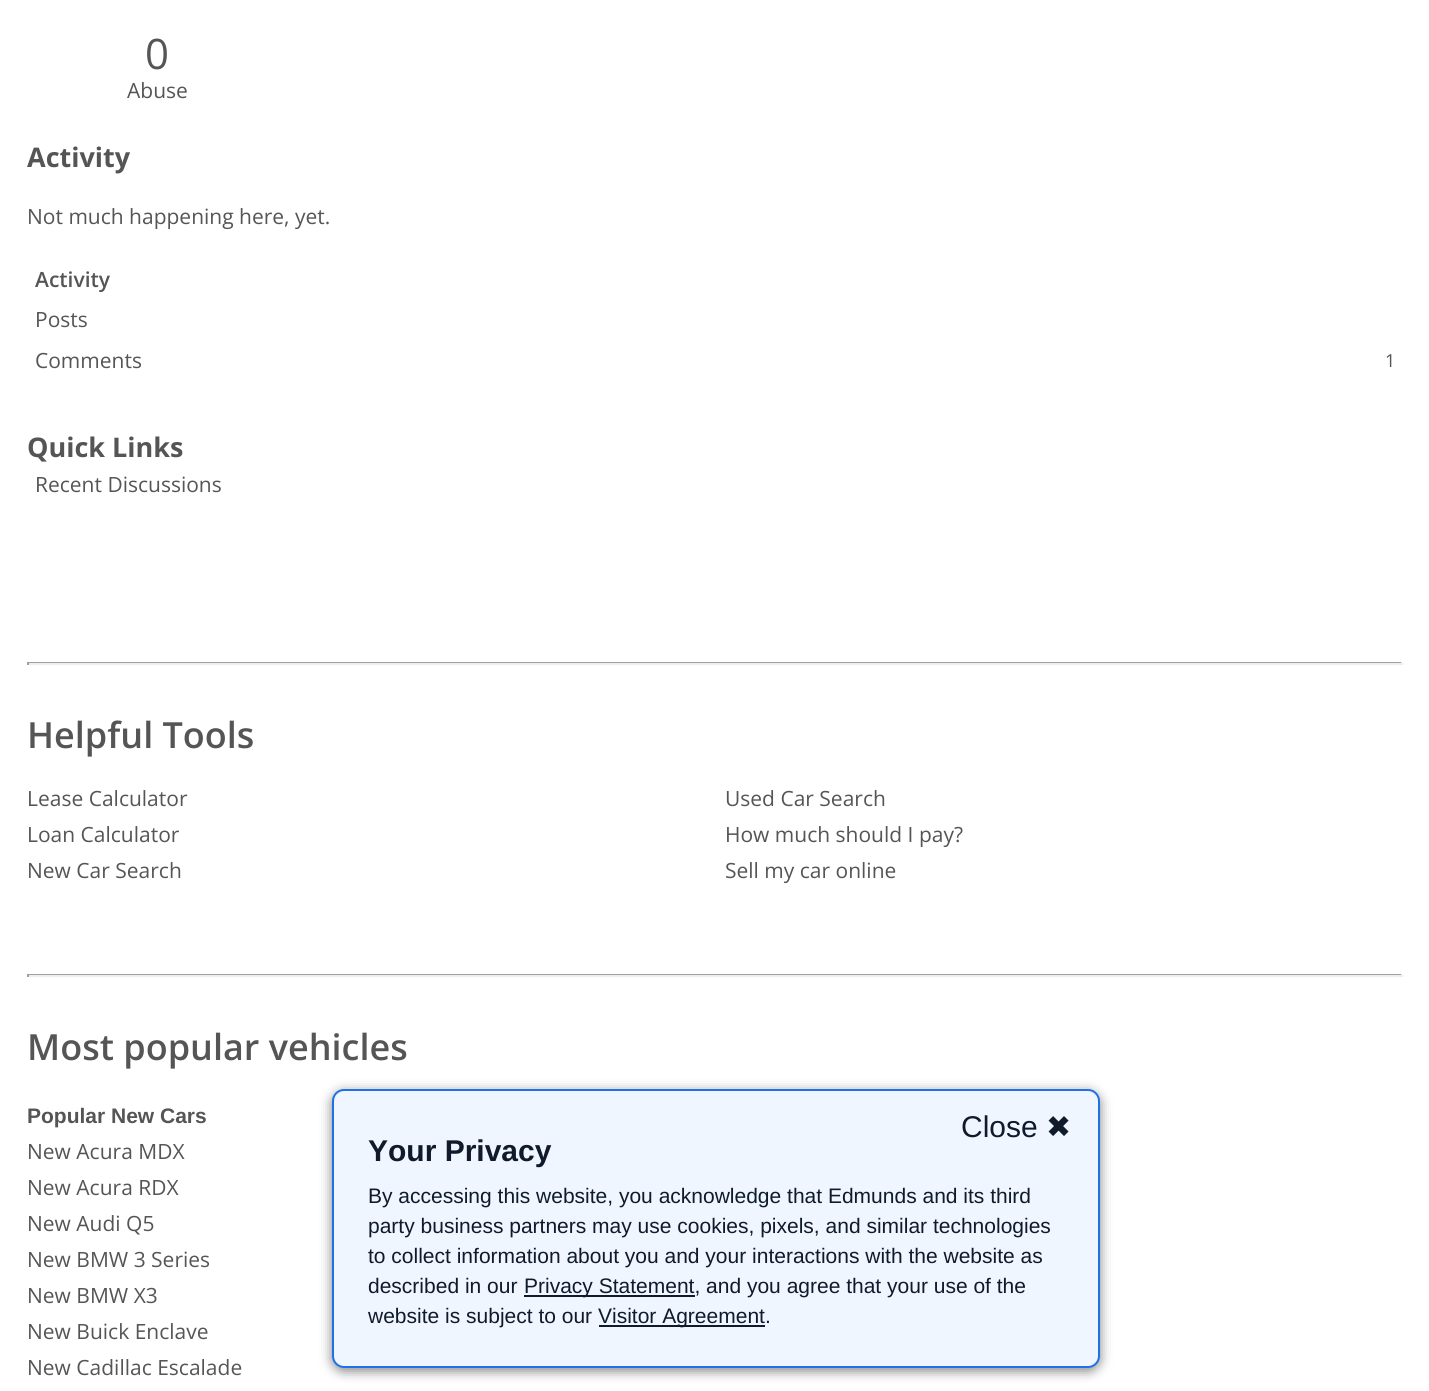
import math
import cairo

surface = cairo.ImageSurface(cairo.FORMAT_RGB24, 1429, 1391)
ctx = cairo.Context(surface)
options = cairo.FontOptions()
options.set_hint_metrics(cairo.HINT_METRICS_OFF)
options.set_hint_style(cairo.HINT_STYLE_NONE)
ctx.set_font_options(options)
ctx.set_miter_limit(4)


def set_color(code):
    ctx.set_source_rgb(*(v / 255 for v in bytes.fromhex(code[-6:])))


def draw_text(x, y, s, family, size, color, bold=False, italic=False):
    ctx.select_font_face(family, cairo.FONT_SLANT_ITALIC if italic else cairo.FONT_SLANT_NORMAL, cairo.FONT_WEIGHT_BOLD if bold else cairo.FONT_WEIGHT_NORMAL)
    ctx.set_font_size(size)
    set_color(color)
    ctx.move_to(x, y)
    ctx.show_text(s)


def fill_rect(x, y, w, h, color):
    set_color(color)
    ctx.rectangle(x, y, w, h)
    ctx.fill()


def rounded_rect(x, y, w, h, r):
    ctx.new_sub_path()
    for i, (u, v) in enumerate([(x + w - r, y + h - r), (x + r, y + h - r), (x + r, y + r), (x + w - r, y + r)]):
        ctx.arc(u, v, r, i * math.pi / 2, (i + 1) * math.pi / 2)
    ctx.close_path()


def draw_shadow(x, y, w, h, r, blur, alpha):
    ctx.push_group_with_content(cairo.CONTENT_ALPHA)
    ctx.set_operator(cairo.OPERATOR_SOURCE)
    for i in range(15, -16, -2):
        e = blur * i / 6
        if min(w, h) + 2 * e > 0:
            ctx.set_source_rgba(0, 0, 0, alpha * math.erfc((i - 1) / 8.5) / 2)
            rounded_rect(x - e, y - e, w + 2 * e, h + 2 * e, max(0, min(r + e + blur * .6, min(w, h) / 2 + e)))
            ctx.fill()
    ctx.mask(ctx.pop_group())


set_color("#ffffff")
ctx.paint()
draw_text(145, 69, "0", "Open Sans", 42, "#555555")
draw_text(127, 98, "Abuse", "Open Sans", 21, "#555555")
draw_text(27, 167, "Activity", "Open Sans", 27, "#555555", bold=True)
draw_text(27, 224, "Not much happening here, yet.", "Open Sans", 21, "#555555")
draw_text(35, 287, "Activity", "Open Sans SemiBold", 21, "#555555")
draw_text(35, 327, "Posts", "Open Sans", 21, "#555555")
draw_text(35, 368, "Comments", "Open Sans", 21, "#555555")
draw_text(1385, 367, "1", "Open Sans", 18, "#555555")
draw_text(27, 457, "Quick Links", "Open Sans", 27, "#555555", bold=True)
draw_text(35, 492, "Recent Discussions", "Open Sans", 21, "#555555")
fill_rect(27, 662, 1376, 1, "#9f9f9f")
fill_rect(1401, 662, 2, 3, "#eeeeee")
fill_rect(27, 663, 1376, 2, "#eeeeee")
fill_rect(27, 662, 2, 3, "#9f9f9f")
draw_text(27, 748, "Helpful Tools", "Open Sans SemiBold", 36, "#555555")
draw_text(27, 806, "Lease Calculator", "Open Sans", 21, "#555555")
draw_text(725, 806, "Used Car Search", "Open Sans", 21, "#555555")
draw_text(27, 842, "Loan Calculator", "Open Sans", 21, "#555555")
draw_text(725, 842, "How much should I pay?", "Open Sans", 21, "#555555")
draw_text(27, 878, "New Car Search", "Open Sans", 21, "#555555")
draw_text(725, 878, "Sell my car online", "Open Sans", 21, "#555555")
fill_rect(27, 974, 1376, 1, "#9f9f9f")
fill_rect(1401, 974, 2, 3, "#eeeeee")
fill_rect(27, 975, 1376, 2, "#eeeeee")
fill_rect(27, 974, 2, 3, "#9f9f9f")
draw_text(27, 1060, "Most popular vehicles", "Open Sans SemiBold", 36, "#555555")
draw_text(27, 1123, "Popular New Cars", "Liberation Sans", 21, "#555555", bold=True)
draw_text(27, 1159, "New Acura MDX", "Open Sans", 21, "#555555")
draw_text(27, 1195, "New Acura RDX", "Open Sans", 21, "#555555")
draw_text(27, 1231, "New Audi Q5", "Open Sans", 21, "#555555")
draw_text(27, 1267, "New BMW 3 Series", "Open Sans", 21, "#555555")
draw_text(27, 1303, "New BMW X3", "Open Sans", 21, "#555555")
draw_text(27, 1339, "New Buick Enclave", "Open Sans", 21, "#555555")
draw_text(27, 1375, "New Cadillac Escalade", "Open Sans", 21, "#555555")
set_color("#000000")
draw_shadow(332, 1092, 768, 279, 12, 6, 0.5)
set_color("#f0f6ff")
rounded_rect(333, 1090, 766, 277, 11)
ctx.fill_preserve()
set_color("#2070e8")
ctx.stroke()
draw_text(961, 1137, "Close", "Liberation Sans", 30, "#0f1a2a")
draw_text(1046, 1137, "✖", "DejaVu Sans", 30, "#0f1a2a")
draw_text(368, 1161, "Your Privacy", "Liberation Sans", 30, "#0f1a2a", bold=True)
draw_text(368, 1203, "By accessing this website, you acknowledge that Edmunds and its third", "Liberation Sans", 21, "#0f1a2a")
draw_text(368, 1233, "party business partners may use cookies, pixels, and similar technologies", "Liberation Sans", 21, "#0f1a2a")
draw_text(368, 1263, "to collect information about you and your interactions with the website as", "Liberation Sans", 21, "#0f1a2a")
draw_text(368, 1293, "described in our", "Liberation Sans", 21, "#0f1a2a")
fill_rect(524, 1295, 171, 2, "#0f1a2a")
draw_text(524, 1293, "Privacy Statement, and you agree that your use of the", "Liberation Sans", 21, "#0f1a2a")
draw_text(368, 1323, "website is subject to our", "Liberation Sans", 21, "#0f1a2a")
fill_rect(599, 1325, 166, 2, "#0f1a2a")
draw_text(598, 1323, "Visitor Agreement.", "Liberation Sans", 21, "#0f1a2a")
surface.write_to_png("output.png")
